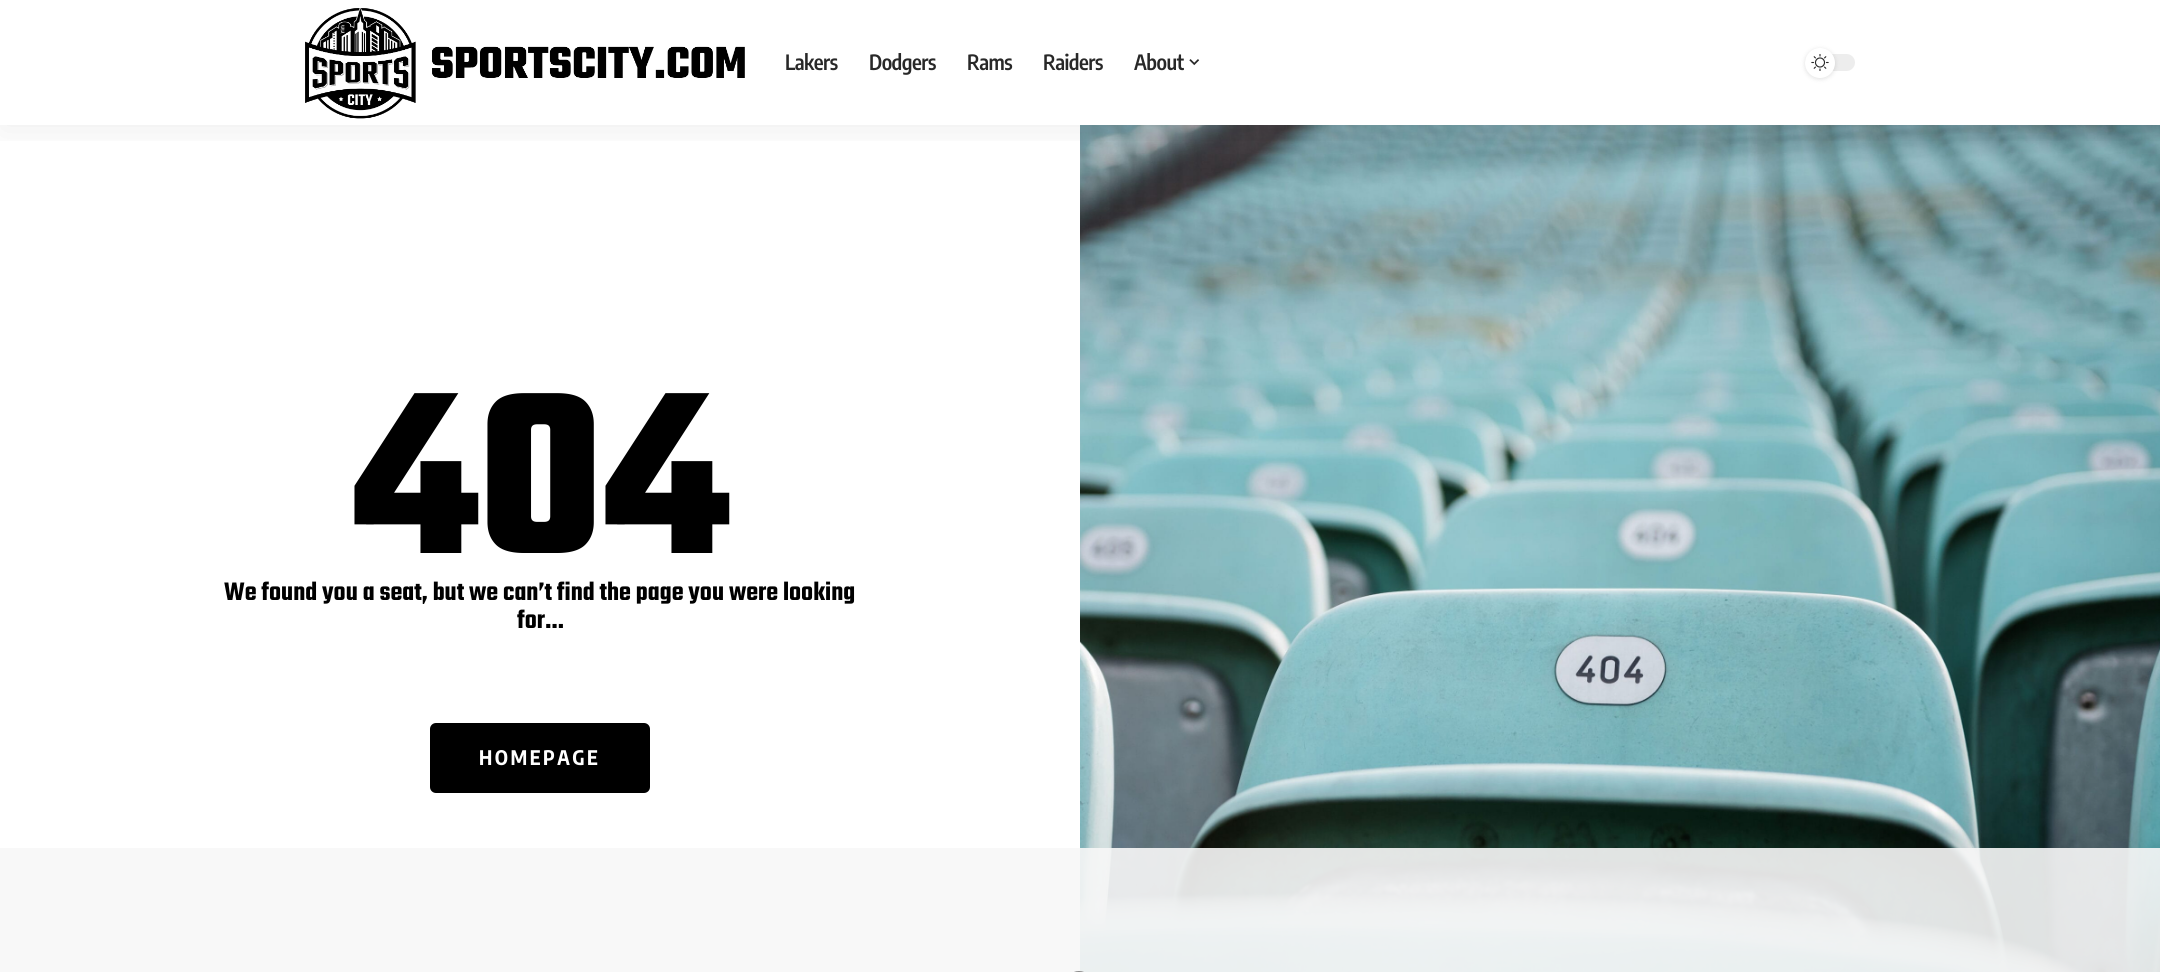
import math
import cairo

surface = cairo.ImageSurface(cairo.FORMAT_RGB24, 2160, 972)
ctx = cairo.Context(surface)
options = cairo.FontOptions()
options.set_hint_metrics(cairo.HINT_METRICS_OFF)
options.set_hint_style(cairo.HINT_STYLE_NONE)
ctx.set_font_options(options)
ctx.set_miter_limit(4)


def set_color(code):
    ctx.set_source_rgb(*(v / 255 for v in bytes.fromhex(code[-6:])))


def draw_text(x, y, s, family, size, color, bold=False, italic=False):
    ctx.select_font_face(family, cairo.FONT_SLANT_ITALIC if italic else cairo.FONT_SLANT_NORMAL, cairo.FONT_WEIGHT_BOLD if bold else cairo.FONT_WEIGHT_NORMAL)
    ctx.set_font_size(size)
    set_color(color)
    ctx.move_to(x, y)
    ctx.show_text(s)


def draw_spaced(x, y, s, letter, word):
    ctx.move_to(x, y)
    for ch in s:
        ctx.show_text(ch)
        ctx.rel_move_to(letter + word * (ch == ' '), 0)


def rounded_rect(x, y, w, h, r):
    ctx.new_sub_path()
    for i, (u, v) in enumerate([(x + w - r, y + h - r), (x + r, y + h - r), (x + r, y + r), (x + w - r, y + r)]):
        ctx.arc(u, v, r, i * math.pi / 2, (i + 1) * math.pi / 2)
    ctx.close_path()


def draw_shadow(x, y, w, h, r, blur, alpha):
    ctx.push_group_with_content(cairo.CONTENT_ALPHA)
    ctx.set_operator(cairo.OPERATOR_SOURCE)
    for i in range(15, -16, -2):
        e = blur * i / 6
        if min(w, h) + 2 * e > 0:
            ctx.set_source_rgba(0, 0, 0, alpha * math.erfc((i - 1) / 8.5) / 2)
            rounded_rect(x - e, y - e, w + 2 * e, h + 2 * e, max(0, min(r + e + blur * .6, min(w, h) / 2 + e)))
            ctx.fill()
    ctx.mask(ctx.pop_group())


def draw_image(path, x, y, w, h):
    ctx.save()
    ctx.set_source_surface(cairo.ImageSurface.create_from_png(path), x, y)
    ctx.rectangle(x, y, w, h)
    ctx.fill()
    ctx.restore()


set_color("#ffffff")
ctx.paint()
draw_image("assets/img4.png", 1080, 125, 1080, 847)
ctx.save()
ctx.rectangle(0, 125, 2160, 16)
ctx.clip()
set_color("#000000")
draw_shadow(0, 5, 2160, 125, 0, 19, 0.07)
ctx.restore()
draw_image("assets/img1.png", 305, 8, 440, 111)
ctx.select_font_face("Encode Sans Condensed SemiBold")
ctx.set_font_size(21)
set_color("#282828")
draw_spaced(785, 70, "Lakers", -0.5, 0)
draw_spaced(869, 70, "Dodgers", -0.5, 0)
draw_spaced(967, 70, "Rams", -0.5, 0)
draw_spaced(1043, 70, "Raiders", -0.5, 0)
draw_spaced(1134, 70, "About", -0.5, 0)
draw_image("assets/img2.png", 1189, 59, 11, 7)
set_color("#ededed")
rounded_rect(1805, 54, 50, 17, 8.5)
ctx.fill()
set_color("#000000")
draw_shadow(1805, 49, 30, 30, 15, 2.5, 0.12)
set_color("#ffffff")
ctx.arc(1820, 63, 15, 0, 2 * math.pi)
ctx.fill()
draw_image("assets/img3.png", 1811, 54, 18, 17)
draw_text(352, 553, "404", "Teko Light", 249, "#000000")
draw_text(224, 600, "We found you a seat, but we can’t find the page you were looking", "Teko SemiBold", 27.5, "#000000")
draw_text(517, 628, "for…", "Teko SemiBold", 27.5, "#000000")
rounded_rect(430, 723, 220, 70, 6)
ctx.fill()
ctx.select_font_face("Encode Sans Condensed", cairo.FONT_SLANT_NORMAL, cairo.FONT_WEIGHT_BOLD)
ctx.set_font_size(20)
set_color("#ffffff")
draw_spaced(479, 765, "HOMEPAGE", 2.5, 0)
ctx.set_source_rgba(0.969, 0.969, 0.969, 0.9)
ctx.rectangle(0, 848, 2160, 124)
ctx.fill()
rounded_rect(1065.5, 971.5, 27, 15, 13.5)
ctx.set_source_rgba(0.969, 0.969, 0.969, 0.75)
ctx.set_line_width(1)
ctx.stroke()
rounded_rect(1065.5, 971.5, 27, 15, 13.5)
set_color("#888888")
ctx.stroke()
surface.write_to_png("output.png")
